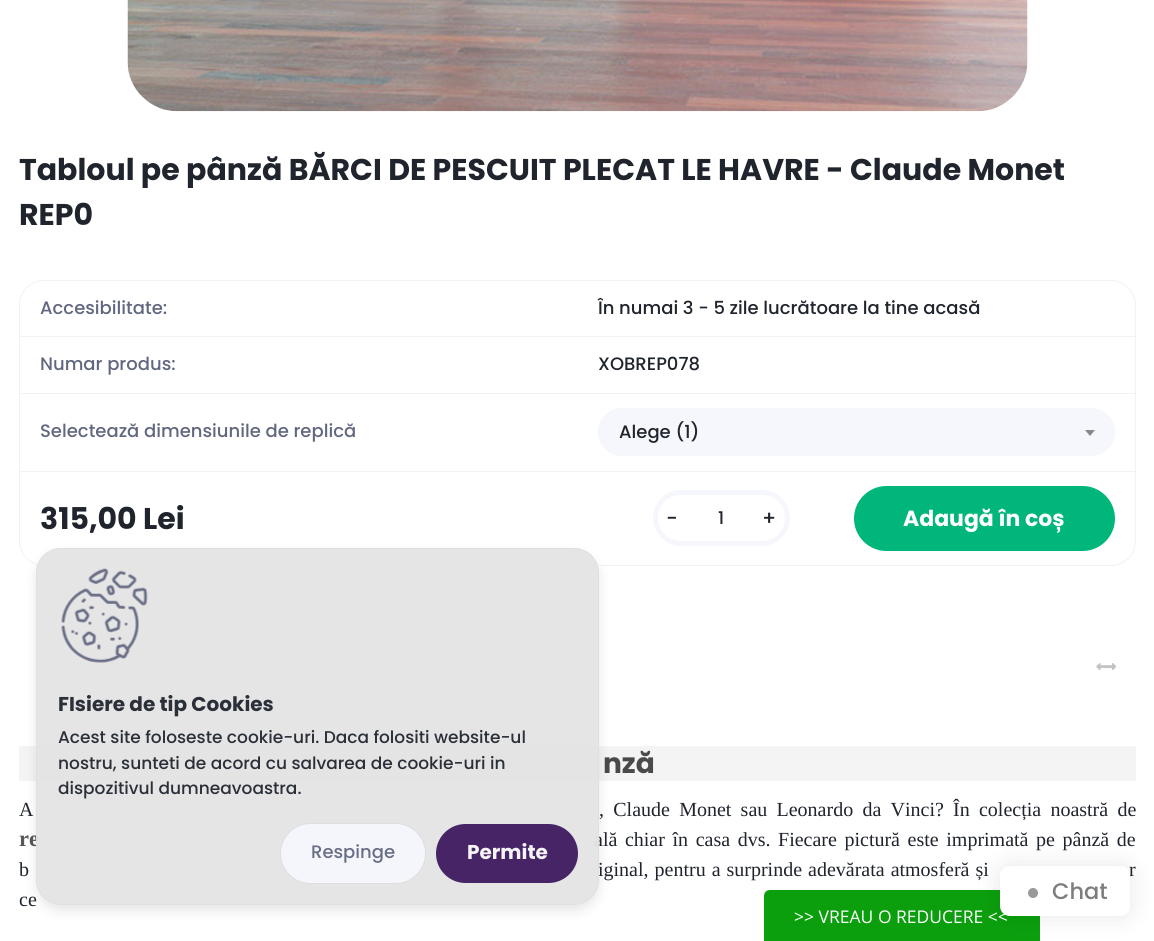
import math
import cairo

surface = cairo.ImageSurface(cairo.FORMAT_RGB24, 1154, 941)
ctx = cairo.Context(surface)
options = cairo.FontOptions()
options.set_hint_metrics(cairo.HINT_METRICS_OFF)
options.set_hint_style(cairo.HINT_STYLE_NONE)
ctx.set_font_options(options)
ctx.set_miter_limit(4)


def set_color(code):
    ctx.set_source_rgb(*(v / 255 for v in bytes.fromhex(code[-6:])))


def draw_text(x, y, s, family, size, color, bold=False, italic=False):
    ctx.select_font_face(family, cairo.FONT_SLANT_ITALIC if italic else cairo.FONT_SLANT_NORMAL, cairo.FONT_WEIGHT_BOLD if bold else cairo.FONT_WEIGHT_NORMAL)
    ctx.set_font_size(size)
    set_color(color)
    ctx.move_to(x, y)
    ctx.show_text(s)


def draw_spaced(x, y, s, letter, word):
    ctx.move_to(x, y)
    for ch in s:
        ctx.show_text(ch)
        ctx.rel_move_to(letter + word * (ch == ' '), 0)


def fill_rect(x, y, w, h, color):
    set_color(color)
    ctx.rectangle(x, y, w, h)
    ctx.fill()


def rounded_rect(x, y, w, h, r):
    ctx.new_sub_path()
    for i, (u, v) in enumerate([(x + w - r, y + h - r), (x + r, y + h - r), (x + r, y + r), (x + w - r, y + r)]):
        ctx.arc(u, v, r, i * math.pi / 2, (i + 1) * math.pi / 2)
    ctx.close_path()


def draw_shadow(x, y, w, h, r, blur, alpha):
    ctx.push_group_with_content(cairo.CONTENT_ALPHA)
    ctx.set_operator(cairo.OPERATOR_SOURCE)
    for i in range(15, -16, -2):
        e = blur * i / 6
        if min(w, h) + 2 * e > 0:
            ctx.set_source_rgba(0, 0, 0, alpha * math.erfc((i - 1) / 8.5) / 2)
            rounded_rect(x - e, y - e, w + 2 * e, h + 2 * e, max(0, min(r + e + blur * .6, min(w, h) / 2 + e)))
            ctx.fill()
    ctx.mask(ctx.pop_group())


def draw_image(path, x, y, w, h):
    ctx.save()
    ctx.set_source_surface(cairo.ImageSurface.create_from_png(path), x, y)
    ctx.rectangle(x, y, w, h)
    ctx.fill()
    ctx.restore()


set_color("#ffffff")
ctx.paint()
draw_image("assets/img1.png", 127, 0, 901, 112)
draw_text(19, 180, "Tabloul pe pânză BĂRCI DE PESCUIT PLECAT LE HAVRE - Claude Monet", "Poppins", 30, "#1f242d", bold=True)
draw_text(19, 225, "REP0", "Poppins", 30, "#1f242d", bold=True)
rounded_rect(19.5, 280.5, 1116, 285, 24.5)
set_color("#f2f2f2")
ctx.set_line_width(1)
ctx.stroke()
fill_rect(20, 336, 1115, 1, "#f2f2f2")
draw_text(40, 314, "Accesibilitate:", "Poppins Medium", 18, "#626780")
draw_text(598, 314, "În numai 3 - 5 zile lucrătoare la tine acasă", "Poppins Medium", 18, "#1f242d")
fill_rect(20, 393, 1115, 1, "#f2f2f2")
draw_text(40, 370, "Numar produs:", "Poppins Medium", 18, "#626780")
draw_text(598, 370, "XOBREP078", "Poppins Medium", 18, "#1f242d")
fill_rect(20, 471, 1115, 1, "#f2f2f2")
draw_text(40, 437, "Selectează dimensiunile de replică", "Poppins Medium", 18, "#626780")
set_color("#f6f7fc")
rounded_rect(598, 408, 517, 48, 24)
ctx.fill()
draw_text(619, 438, "Alege (1)", "Poppins Medium", 18, "#1f242d")
set_color("#888888")
ctx.new_path()
ctx.move_to(1085, 430)
ctx.line_to(1095, 430)
ctx.line_to(1090, 436)
ctx.close_path()
ctx.fill()
draw_text(40, 529, "315,00 Lei", "Poppins", 30, "#1f242d", bold=True)
rounded_rect(655.5, 492.5, 132, 51, 25.5)
set_color("#f6f7fc")
ctx.set_line_width(5)
ctx.stroke()
draw_text(666, 525, "-", "Poppins Medium", 20, "#1f242d")
draw_text(718, 524, "1", "Poppins Medium", 17.5, "#1f242d")
draw_text(762, 525, "+", "Poppins Medium", 20, "#1f242d")
set_color("#00b67a")
rounded_rect(854, 486, 261, 65, 32.5)
ctx.fill()
draw_text(903, 526, "Adaugă în coș", "Poppins", 22, "#ffffff", bold=True)
draw_image("assets/img2.png", 1096, 663, 21, 8)
fill_rect(19, 746, 1117, 35, "#f4f4f4")
draw_text(603, 773, "nză", "Poppins", 28, "#4a4a4a", bold=True)
ctx.select_font_face("Liberation Serif")
ctx.set_font_size(20)
set_color("#1f242d")
draw_spaced(19, 816, "A", 0, 4.25)
draw_spaced(599, 816, ", Claude Monet sau Leonardo da Vinci? În colecția noastră de", 0, 4.25)
ctx.select_font_face("Liberation Serif", cairo.FONT_SLANT_NORMAL, cairo.FONT_WEIGHT_BOLD)
ctx.set_font_size(22.5)
set_color("#585656")
draw_spaced(19, 846, "re", 0, 2.6)
ctx.select_font_face("Liberation Serif")
ctx.set_font_size(20)
set_color("#1f242d")
draw_spaced(594, 846, "ală chiar în casa dvs. Fiecare pictură este imprimată pe pânză de", 0, 2.6)
draw_spaced(19, 876, "b", 0, 1)
draw_spaced(598, 876, "iginal, pentru a surprinde adevărata atmosferă și", 0, 1)
draw_spaced(1129, 876, "r", 0, 1)
draw_text(19, 906, "ce", "Liberation Serif", 20, "#1f242d")
ctx.save()
ctx.set_fill_rule(cairo.FILL_RULE_EVEN_ODD)
ctx.new_path()
ctx.move_to(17, 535)
ctx.line_to(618, 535)
ctx.line_to(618, 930)
ctx.line_to(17, 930)
ctx.close_path()
ctx.move_to(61, 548)
ctx.line_to(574, 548)
ctx.curve_to(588, 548, 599, 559, 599, 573)
ctx.line_to(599, 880)
ctx.curve_to(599, 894, 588, 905, 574, 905)
ctx.line_to(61, 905)
ctx.curve_to(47, 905, 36, 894, 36, 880)
ctx.line_to(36, 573)
ctx.curve_to(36, 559, 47, 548, 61, 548)
ctx.close_path()
ctx.clip()
set_color("#000000")
draw_shadow(36, 554, 563, 357, 25, 6, 0.1)
ctx.restore()
ctx.set_source_rgba(0.894, 0.894, 0.894, 0.95)
rounded_rect(36, 548, 563, 357, 25)
ctx.fill()
rounded_rect(36.5, 548.5, 562, 356, 24.5)
ctx.set_source_rgba(0.878, 0.878, 0.878, 0.95)
ctx.set_line_width(1)
ctx.stroke()
draw_image("assets/img3.png", 61, 568, 87, 95)
draw_text(58, 711, "FIsiere de tip Cookies", "Poppins", 20, "#2a2f38", bold=True)
draw_text(58, 743, "Acest site foloseste cookie-uri. Daca folositi website-ul", "Poppins Medium", 17, "#2a2f38")
draw_text(58, 769, "nostru, sunteti de acord cu salvarea de cookie-uri in", "Poppins Medium", 17, "#2a2f38")
draw_text(58, 794, "dispozitivul dumneavoastra.", "Poppins Medium", 17, "#2a2f38")
ctx.set_source_rgba(0.965, 0.969, 0.988, 0.95)
rounded_rect(280, 823, 146, 61, 30.5)
ctx.fill()
rounded_rect(280.5, 823.5, 145, 60, 30)
ctx.set_source_rgba(0, 0, 0, 0.1)
ctx.stroke()
draw_text(311, 858, "Respinge", "Poppins Medium", 18, "#696e86")
ctx.set_source_rgba(0.243, 0.106, 0.373, 0.95)
rounded_rect(436, 824, 142, 59, 29.5)
ctx.fill()
draw_text(467, 859, "Permite", "Poppins", 20, "#f6f4f7", bold=True)
set_color("#0b9f0d")
ctx.new_path()
ctx.move_to(770, 890)
ctx.line_to(1034, 890)
ctx.curve_to(1037.5, 890, 1040, 892.5, 1040, 896)
ctx.line_to(1040, 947)
ctx.line_to(764, 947)
ctx.line_to(764, 896)
ctx.curve_to(764, 892.5, 766.5, 890, 770, 890)
ctx.close_path()
ctx.fill()
set_color("#000000")
draw_shadow(1000, 866, 130, 50, 10, 12.5, 0.1)
set_color("#ffffff")
rounded_rect(1000, 866, 130, 50, 10)
ctx.fill()
set_color("#999999")
ctx.arc(1033, 893, 7.5, 0, 2 * math.pi)
ctx.fill_preserve()
set_color("#ffffff")
ctx.set_line_width(5)
ctx.stroke()
draw_text(1052, 899, "Chat", "Poppins Medium", 22.5, "#7d7d7d")
draw_text(794, 923, ">> VREAU O REDUCERE <<", "Open Sans", 17.5, "#ffffff")
surface.write_to_png("output.png")
